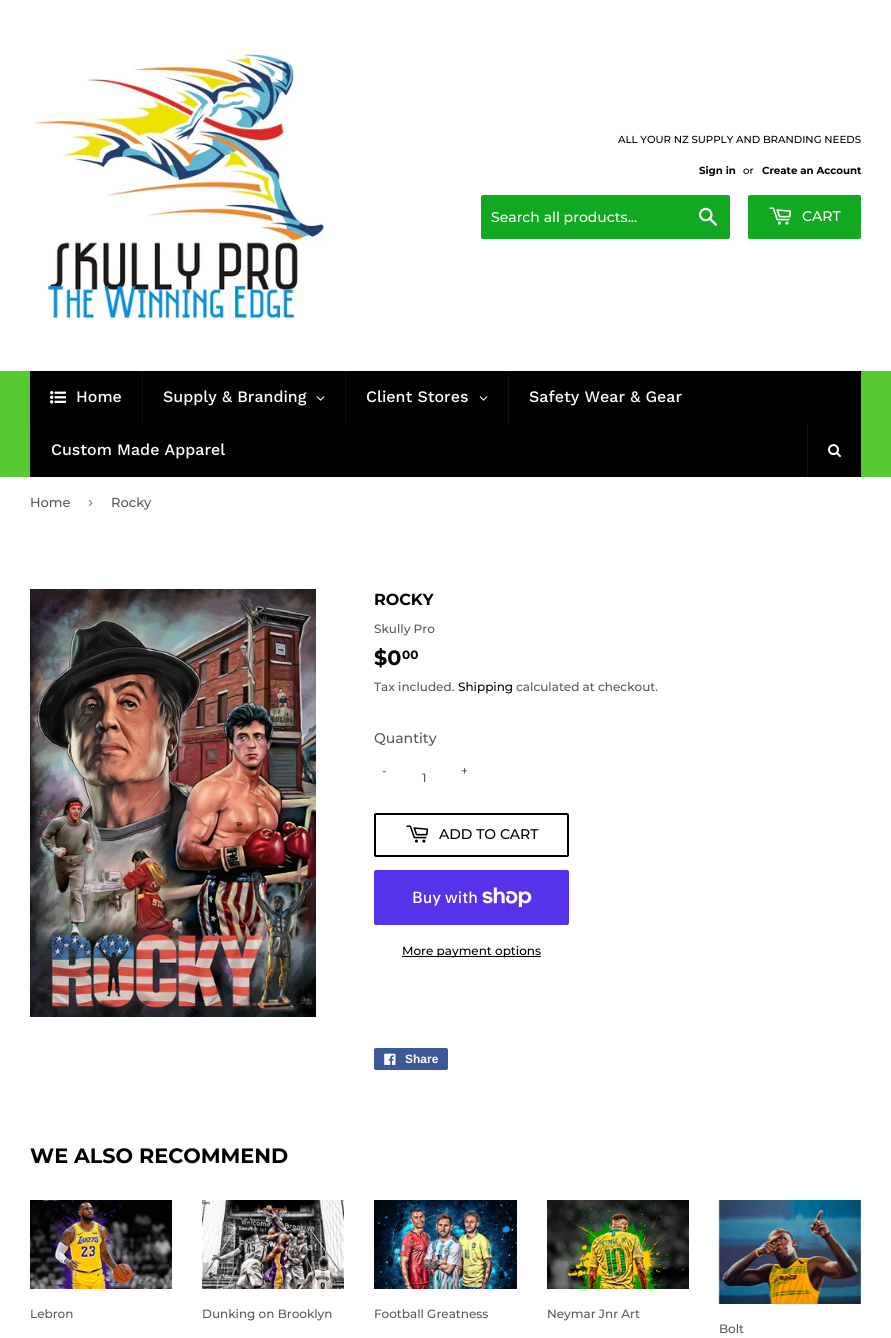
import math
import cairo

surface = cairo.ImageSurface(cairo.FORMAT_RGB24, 891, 1338)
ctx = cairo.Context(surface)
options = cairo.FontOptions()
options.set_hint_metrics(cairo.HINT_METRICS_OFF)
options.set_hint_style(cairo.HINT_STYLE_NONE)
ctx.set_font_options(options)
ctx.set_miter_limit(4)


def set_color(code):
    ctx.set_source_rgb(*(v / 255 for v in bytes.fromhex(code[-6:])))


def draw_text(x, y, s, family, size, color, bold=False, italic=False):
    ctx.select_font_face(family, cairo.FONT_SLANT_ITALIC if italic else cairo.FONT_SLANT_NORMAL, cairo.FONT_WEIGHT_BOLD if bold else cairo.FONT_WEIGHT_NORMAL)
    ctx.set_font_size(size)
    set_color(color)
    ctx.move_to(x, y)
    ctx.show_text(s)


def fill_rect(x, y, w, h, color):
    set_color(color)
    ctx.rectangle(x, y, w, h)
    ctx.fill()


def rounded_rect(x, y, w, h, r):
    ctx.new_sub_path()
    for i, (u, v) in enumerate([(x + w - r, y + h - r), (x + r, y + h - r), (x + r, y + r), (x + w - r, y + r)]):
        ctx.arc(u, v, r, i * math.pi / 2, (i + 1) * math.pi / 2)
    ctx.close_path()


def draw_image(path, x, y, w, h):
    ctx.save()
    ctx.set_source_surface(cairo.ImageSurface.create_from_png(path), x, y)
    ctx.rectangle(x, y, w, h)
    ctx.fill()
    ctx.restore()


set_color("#ffffff")
ctx.paint()
draw_image("assets/img1.png", 30, 52, 295, 267)
draw_text(618, 143, "ALL YOUR NZ SUPPLY AND BRANDING NEEDS", "Montserrat Medium", 10.2, "#000000")
draw_text(699, 174, "Sign in", "Montserrat", 10.2, "#000000", bold=True)
draw_text(743, 174, "or", "Montserrat Medium", 10.2, "#000000")
draw_text(762, 174, "Create an Account", "Montserrat", 10.2, "#000000", bold=True)
set_color("#12a922")
rounded_rect(481, 195, 249, 44, 2)
ctx.fill()
draw_text(491, 222, "Search all products...", "Montserrat Medium", 14, "#ffffff")
draw_image("assets/img2.png", 699, 207, 18, 19)
set_color("#12a922")
rounded_rect(748, 195, 113, 44, 2)
ctx.fill()
draw_image("assets/img3.png", 769, 207, 23, 18)
draw_text(802, 221, "CART", "Montserrat Medium", 14, "#ffffff")
fill_rect(0, 371, 891, 106, "#56ca2f")
fill_rect(30, 371, 831, 106, "#000000")
draw_image("assets/img4.png", 50, 391, 16, 13)
draw_text(76, 402, "Home", "Work Sans Medium", 16, "#ffffff")
fill_rect(142, 371, 1, 53, "#0f0f0f")
draw_text(163, 402, "Supply & Branding", "Work Sans Medium", 16, "#ffffff")
draw_image("assets/img5.png", 316, 396, 9, 5)
fill_rect(345, 371, 1, 53, "#0f0f0f")
draw_text(366, 402, "Client Stores", "Work Sans Medium", 16, "#ffffff")
draw_image("assets/img5.png", 479, 396, 9, 5)
fill_rect(508, 371, 1, 53, "#0f0f0f")
draw_text(529, 402, "Safety Wear & Gear", "Work Sans Medium", 16, "#ffffff")
fill_rect(30, 424, 1, 53, "#0f0f0f")
draw_text(51, 455, "Custom Made Apparel", "Work Sans Medium", 16, "#ffffff")
fill_rect(807, 424, 1, 53, "#0f0f0f")
draw_image("assets/img6.png", 828, 444, 13, 14)
draw_text(30, 507, "Home", "Montserrat Medium", 13, "#585858")
draw_text(88, 507, "›", "Liberation Sans", 15, "#767676")
draw_text(111, 507, "Rocky", "Montserrat Medium", 13, "#585858")
draw_image("assets/img7.png", 30, 589, 286, 428)
draw_text(374, 605, "ROCKY", "Montserrat", 16, "#000000", bold=True)
draw_text(374, 633, "Skully Pro", "Montserrat Medium", 12, "#585858")
draw_text(374, 665, "$0", "Montserrat", 20.75, "#000000", bold=True)
draw_text(402, 659, "00", "Montserrat", 12, "#000000", bold=True)
draw_text(374, 691, "Tax included.", "Montserrat Medium", 12, "#585858")
draw_text(458, 691, "Shipping", "Montserrat Medium", 12, "#000000")
draw_text(516, 691, "calculated at checkout.", "Montserrat Medium", 12, "#585858")
draw_text(374, 743, "Quantity", "Montserrat Medium", 14, "#585858")
draw_text(382, 775, "-", "Montserrat Medium", 12, "#585858")
draw_text(461, 775, "+", "Montserrat Medium", 12, "#585858")
draw_text(422, 782, "1", "Montserrat Medium", 12, "#585858")
rounded_rect(375, 814, 193, 42, 1)
set_color("#000000")
ctx.stroke()
draw_image("assets/img8.png", 406, 825, 23, 18)
draw_text(439, 839, "ADD TO CART", "Montserrat Medium", 14, "#000000")
set_color("#5433eb")
rounded_rect(374, 870, 195, 55, 2)
ctx.fill()
draw_text(412, 903, "Buy with", "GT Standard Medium", 16, "#ffffff")
draw_image("assets/img9.png", 482, 887, 50, 20)
fill_rect(402, 956, 139, 1, "#000000")
draw_text(402, 955, "More payment options", "Montserrat Medium", 12, "#000000")
set_color("#3b5998")
rounded_rect(374, 1048, 74, 22, 2)
ctx.fill()
draw_image("assets/img10.png", 384, 1053, 12, 12)
draw_text(405, 1063, "Share", "Liberation Sans", 12, "#ffffff", bold=True)
draw_text(30, 1163, "WE ALSO RECOMMEND", "Montserrat", 20.75, "#000000", bold=True)
draw_image("assets/img11.png", 30, 1200, 142, 89)
draw_text(30, 1318, "Lebron", "Montserrat Medium", 12, "#585858")
draw_image("assets/img12.png", 202, 1200, 142, 89)
draw_text(202, 1318, "Dunking on Brooklyn", "Montserrat Medium", 12, "#585858")
draw_image("assets/img13.png", 374, 1200, 143, 89)
draw_text(374, 1318, "Football Greatness", "Montserrat Medium", 12, "#585858")
draw_image("assets/img14.png", 547, 1200, 142, 89)
draw_text(547, 1318, "Neymar Jnr Art", "Montserrat Medium", 12, "#585858")
draw_image("assets/img15.png", 718, 1200, 143, 104)
draw_text(719, 1333, "Bolt", "Montserrat Medium", 12, "#585858")
surface.write_to_png("output.png")
